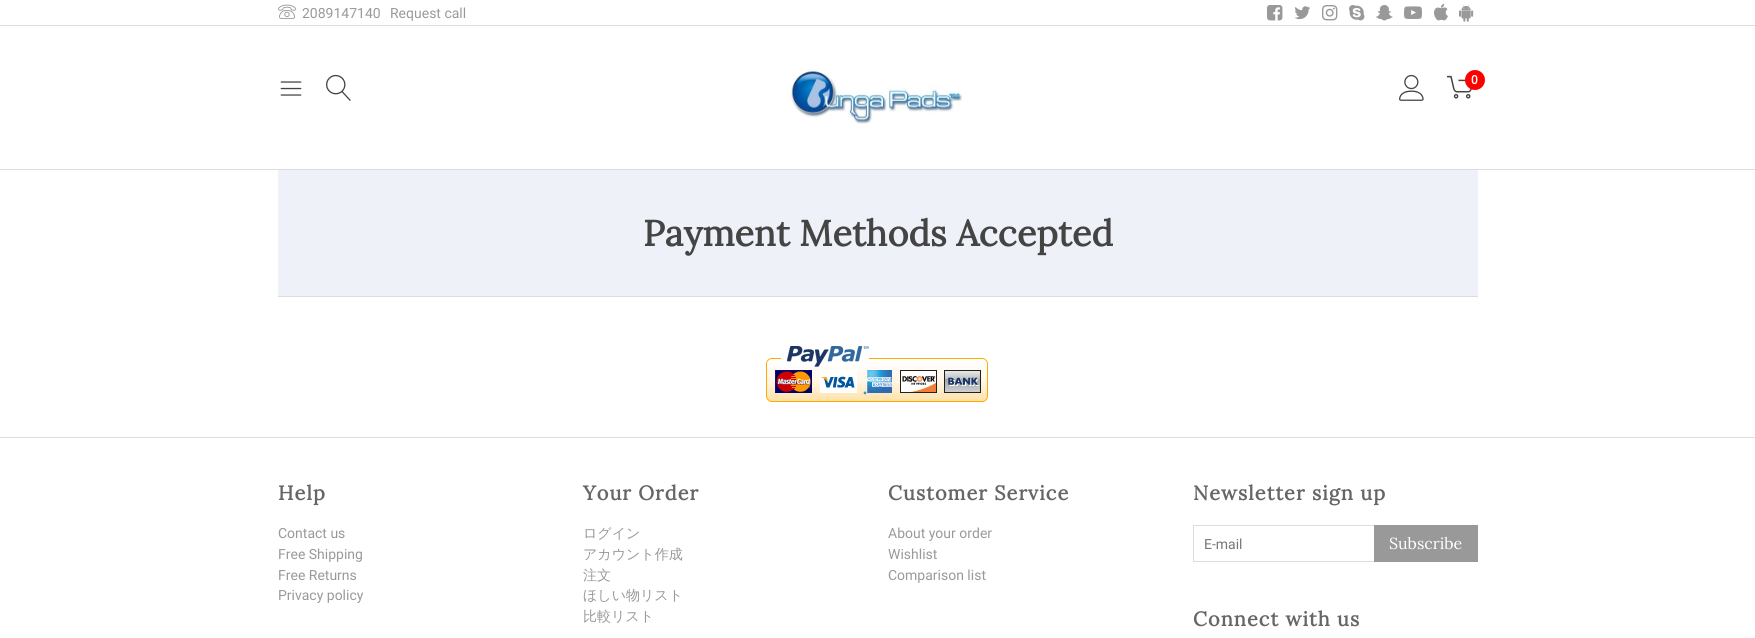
import math
import cairo

surface = cairo.ImageSurface(cairo.FORMAT_RGB24, 1755, 638)
ctx = cairo.Context(surface)
options = cairo.FontOptions()
options.set_hint_metrics(cairo.HINT_METRICS_OFF)
options.set_hint_style(cairo.HINT_STYLE_NONE)
ctx.set_font_options(options)
ctx.set_miter_limit(4)


def set_color(code):
    ctx.set_source_rgb(*(v / 255 for v in bytes.fromhex(code[-6:])))


def draw_text(x, y, s, family, size, color, bold=False, italic=False):
    ctx.select_font_face(family, cairo.FONT_SLANT_ITALIC if italic else cairo.FONT_SLANT_NORMAL, cairo.FONT_WEIGHT_BOLD if bold else cairo.FONT_WEIGHT_NORMAL)
    ctx.set_font_size(size)
    set_color(color)
    ctx.move_to(x, y)
    ctx.show_text(s)


def draw_spaced(x, y, s, letter, word):
    ctx.move_to(x, y)
    for ch in s:
        ctx.show_text(ch)
        ctx.rel_move_to(letter + word * (ch == ' '), 0)


def fill_rect(x, y, w, h, color):
    set_color(color)
    ctx.rectangle(x, y, w, h)
    ctx.fill()


def draw_image(path, x, y, w, h):
    ctx.save()
    ctx.set_source_surface(cairo.ImageSurface.create_from_png(path), x, y)
    ctx.rectangle(x, y, w, h)
    ctx.fill()
    ctx.restore()


set_color("#ffffff")
ctx.paint()
fill_rect(0, 25, 1755, 1, "#dddddd")
draw_image("assets/img1.png", 278, 4, 18, 15)
draw_text(302, 18, "2089147140", "Roboto", 14, "#999999")
draw_text(390, 18, "Request call", "Roboto", 14, "#999999")
draw_image("assets/img2.png", 1267, 5, 16, 16)
draw_image("assets/img3.png", 1294, 6, 16, 14)
draw_image("assets/img4.png", 1322, 5, 16, 16)
draw_image("assets/img5.png", 1349, 5, 16, 16)
draw_image("assets/img6.png", 1376, 5, 17, 16)
draw_image("assets/img7.png", 1404, 6, 18, 13)
draw_image("assets/img8.png", 1434, 3, 14, 18)
draw_image("assets/img9.png", 1459, 5, 15, 17)
fill_rect(0, 169, 1755, 1, "#dddddd")
draw_image("assets/img10.png", 280, 81, 22, 15)
draw_image("assets/img11.png", 326, 74, 25, 27)
draw_image("assets/img12.png", 790, 66, 173, 58)
draw_image("assets/img13.png", 1399, 74, 25, 27)
draw_image("assets/img14.png", 1447, 75, 25, 24)
set_color("#ff0000")
ctx.arc(1475, 80, 10, 0, 2 * math.pi)
ctx.fill()
draw_text(1471, 84, "0", "Roboto", 12, "#ffffff", bold=True)
fill_rect(278, 170, 1200, 126, "#eef1f8")
fill_rect(278, 296, 1200, 1, "#dddddd")
draw_text(643, 246, "Payment Methods Accepted", "Lora", 36, "#444444", bold=True)
draw_image("assets/img15.png", 766, 346, 222, 56)
fill_rect(0, 437, 1755, 1, "#dddddd")
ctx.set_font_size(20)
set_color("#666666")
draw_spaced(278, 500, "Help", 1, 0)
draw_text(278, 538, "Contact us", "Roboto", 14, "#999999")
draw_text(278, 559, "Free Shipping", "Roboto", 14, "#999999")
draw_text(278, 580, "Free Returns", "Roboto", 14, "#999999")
draw_text(278, 600, "Privacy policy", "Roboto", 14, "#999999")
ctx.select_font_face("Lora", cairo.FONT_SLANT_NORMAL, cairo.FONT_WEIGHT_BOLD)
ctx.set_font_size(20)
set_color("#666666")
draw_spaced(583, 500, "Your Order", 1, 0)
draw_text(583, 538, "ログイン", "WenQuanYi Zen Hei Medium", 14, "#999999")
draw_text(583, 559, "アカウント作成", "WenQuanYi Zen Hei Medium", 14, "#999999")
draw_text(583, 580, "注文", "WenQuanYi Zen Hei Medium", 14, "#999999")
draw_text(583, 600, "ほしい物リスト", "WenQuanYi Zen Hei Medium", 14, "#999999")
draw_text(583, 621, "比較リスト", "WenQuanYi Zen Hei Medium", 14, "#999999")
ctx.select_font_face("Lora", cairo.FONT_SLANT_NORMAL, cairo.FONT_WEIGHT_BOLD)
ctx.set_font_size(20)
set_color("#666666")
draw_spaced(888, 500, "Customer Service", 1, 0)
draw_text(888, 538, "About your order", "Roboto", 14, "#999999")
draw_text(888, 559, "Wishlist", "Roboto", 14, "#999999")
draw_text(888, 580, "Comparison list", "Roboto", 14, "#999999")
ctx.select_font_face("Lora", cairo.FONT_SLANT_NORMAL, cairo.FONT_WEIGHT_BOLD)
ctx.set_font_size(20)
set_color("#666666")
draw_spaced(1193, 500, "Newsletter sign up", 1, 0)
ctx.rectangle(1193.5, 525.5, 284, 36)
set_color("#dddddd")
ctx.set_line_width(1)
ctx.stroke()
draw_text(1204, 549, "E-mail", "Roboto", 14, "#757575")
fill_rect(1374, 525, 104, 37, "#999999")
draw_text(1389, 549, "Subscribe", "Lora", 16, "#ffffff")
ctx.select_font_face("Lora", cairo.FONT_SLANT_NORMAL, cairo.FONT_WEIGHT_BOLD)
ctx.set_font_size(20)
set_color("#666666")
draw_spaced(1193, 626, "Connect with us", 1, 0)
surface.write_to_png("output.png")
